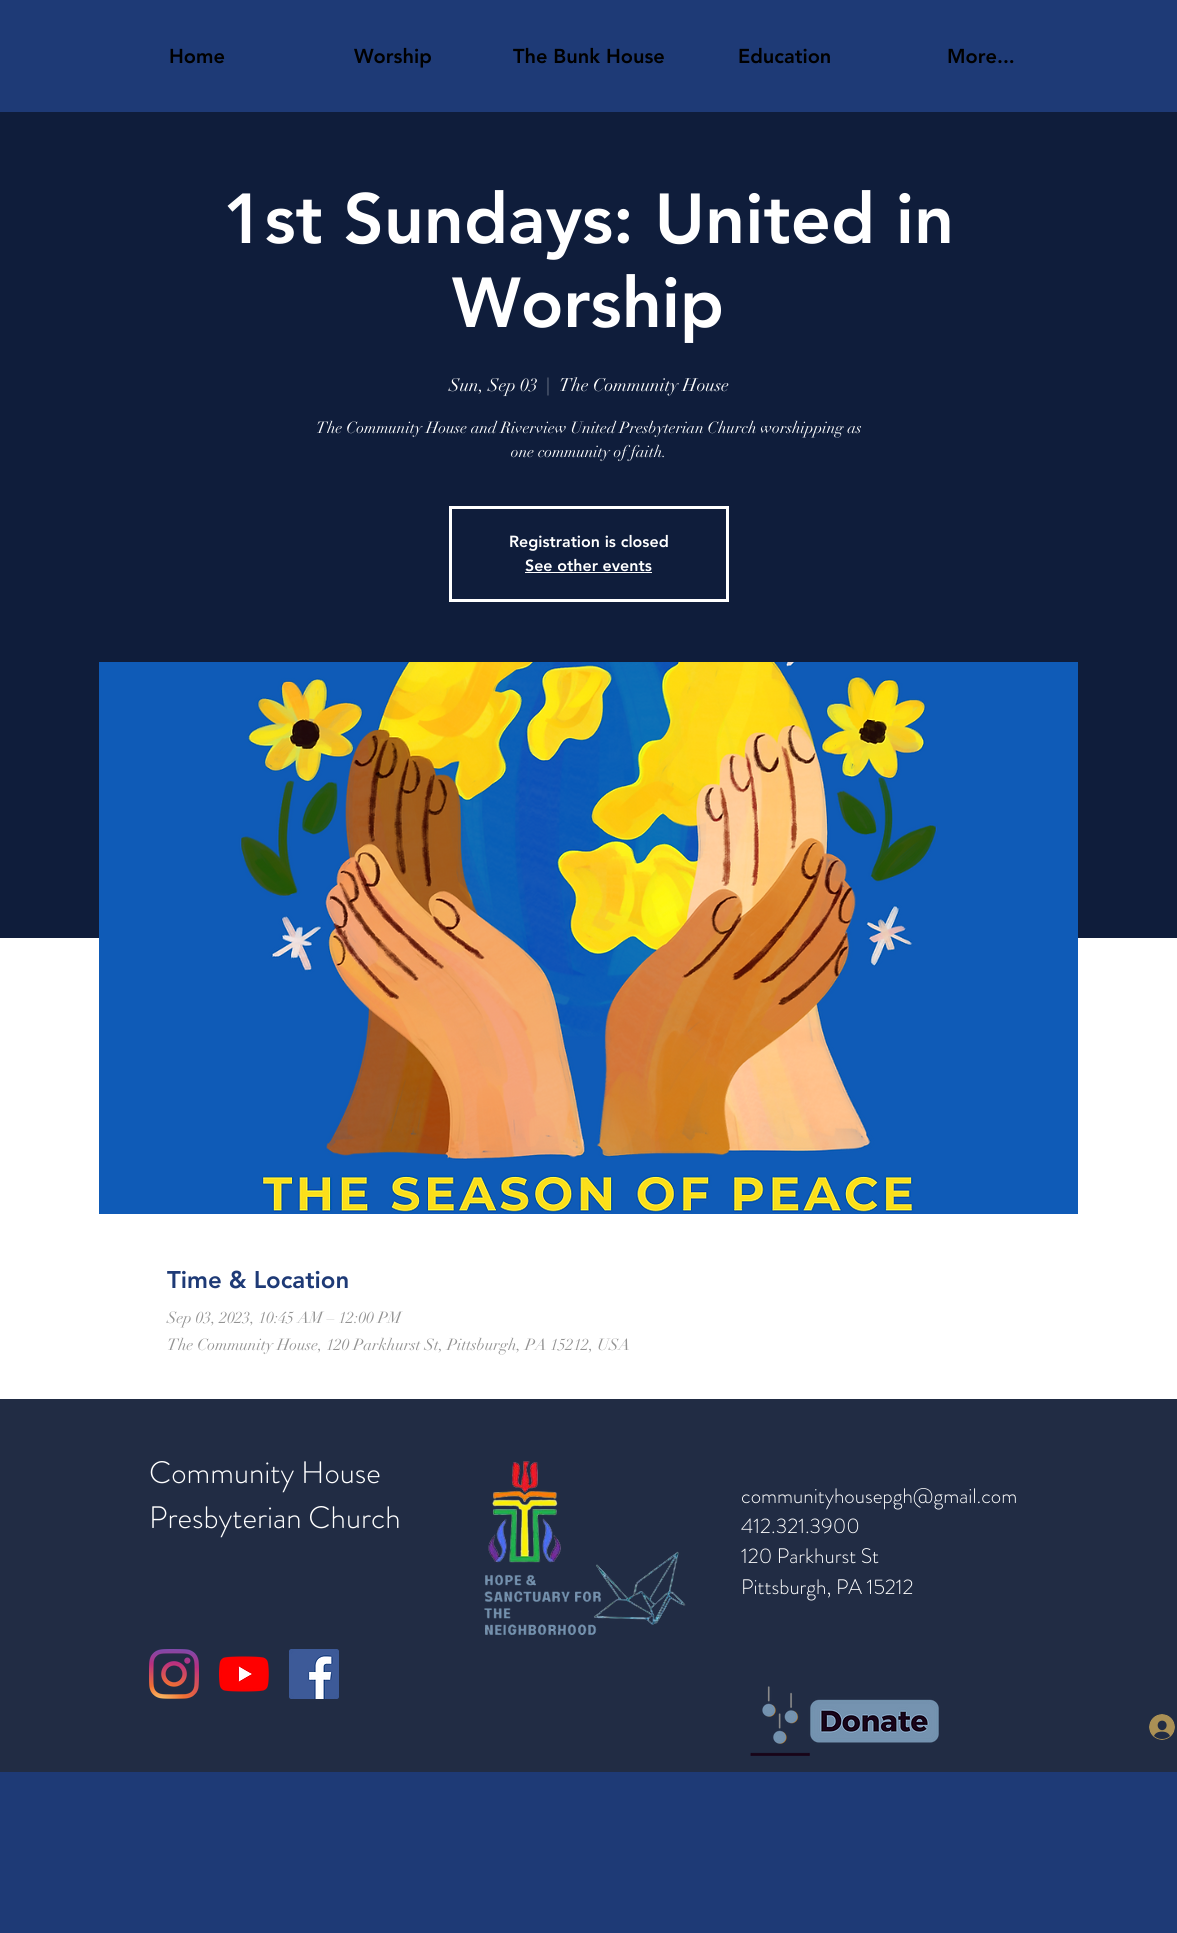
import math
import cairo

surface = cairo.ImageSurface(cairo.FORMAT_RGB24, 1177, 1933)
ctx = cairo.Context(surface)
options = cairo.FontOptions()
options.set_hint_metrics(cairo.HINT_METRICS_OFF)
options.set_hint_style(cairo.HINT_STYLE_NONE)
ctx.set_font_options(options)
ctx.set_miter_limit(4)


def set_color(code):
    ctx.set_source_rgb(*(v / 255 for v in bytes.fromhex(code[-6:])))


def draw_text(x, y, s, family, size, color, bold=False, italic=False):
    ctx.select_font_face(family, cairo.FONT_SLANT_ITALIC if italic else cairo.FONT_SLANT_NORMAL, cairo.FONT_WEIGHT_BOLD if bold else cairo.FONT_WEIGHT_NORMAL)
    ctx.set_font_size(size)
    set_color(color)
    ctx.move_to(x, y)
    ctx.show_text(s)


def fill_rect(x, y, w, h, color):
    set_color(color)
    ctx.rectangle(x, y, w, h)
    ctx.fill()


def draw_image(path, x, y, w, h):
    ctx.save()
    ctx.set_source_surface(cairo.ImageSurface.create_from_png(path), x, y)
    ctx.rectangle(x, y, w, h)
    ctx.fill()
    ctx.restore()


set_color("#1e3a76")
ctx.paint()
draw_text(169, 63, "Home", "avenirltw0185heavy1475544 Black", 20, "#000000")
draw_text(354, 63, "Worship", "avenirltw0185heavy1475544 Black", 20, "#000000")
draw_text(513, 63, "The Bunk House", "avenirltw0185heavy1475544 Black", 20, "#000000")
draw_text(738, 63, "Education", "avenirltw0185heavy1475544 Black", 20, "#000000")
draw_text(947, 63, "More...", "avenirltw0185heavy1475544 Black", 20, "#000000")
fill_rect(0, 112, 1177, 826, "#0f1d3b")
draw_text(223, 243, "1st Sundays: United in", "avenirltw0185heavy1475544 Black", 70, "#ffffff")
draw_text(452, 327, "Worship", "avenirltw0185heavy1475544 Black", 70, "#ffffff")
draw_text(449, 391, "Sun, Sep 03", "didot", 18, "#ffffff")
draw_text(546, 391, "|", "didot", 18, "#ffffff")
draw_text(559, 391, "The Community House", "didot", 18, "#ffffff")
draw_text(316, 433, "The Community House and Riverview United Presbyterian Church worshipping as", "didot", 16, "#ffffff")
draw_text(511, 457, "one community of faith.", "didot", 16, "#ffffff")
ctx.rectangle(450.5, 507.5, 277, 93)
ctx.set_line_width(3)
ctx.stroke()
draw_text(509, 547, "Registration is closed", "avenirltw0185heavy1475544 Black", 16, "#ffffff")
draw_text(525, 571, "See other events", "avenirltw0185heavy1475544 Black", 16, "#ffffff")
fill_rect(525, 572, 127, 1, "#ffffff")
fill_rect(0, 938, 1177, 461, "#ffffff")
draw_image("assets/img1.png", 99, 662, 979, 552)
draw_text(167, 1288, "Time & Location", "avenirltw0185heavy1475544 Black", 24, "#1e3a76")
draw_text(167, 1323, "Sep 03, 2023, 10:45 AM – 12:00 PM", "didot", 16, "#929292")
draw_text(167, 1350, "The Community House, 120 Parkhurst St, Pittsburgh, PA 15212, USA", "didot", 16, "#929292")
fill_rect(0, 1399, 1177, 373, "#212c44")
draw_text(149, 1483, "Community House", "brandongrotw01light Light", 31, "#ffffff")
draw_text(149, 1528, "Presbyterian Church", "brandongrotw01light Light", 31, "#ffffff")
draw_image("assets/img2.png", 484, 1461, 202, 174)
draw_text(741, 1503, "communityhousepgh@gmail.com", "brandongrotw01light Light", 21, "#ffffff")
draw_text(741, 1533, "412.321.3900", "brandongrotw01light Light", 21, "#ffffff")
draw_text(741, 1563, "120 Parkhurst St", "brandongrotw01light Light", 21, "#ffffff")
draw_text(741, 1594, "Pittsburgh, PA 15212", "brandongrotw01light Light", 21, "#ffffff")
draw_image("assets/img3.png", 149, 1649, 50, 50)
draw_image("assets/img4.png", 219, 1656, 50, 36)
draw_image("assets/img5.png", 289, 1649, 50, 50)
draw_image("assets/img6.png", 750, 1686, 189, 70)
draw_image("assets/img7.png", 1149, 1714, 26, 26)
surface.write_to_png("output.png")
